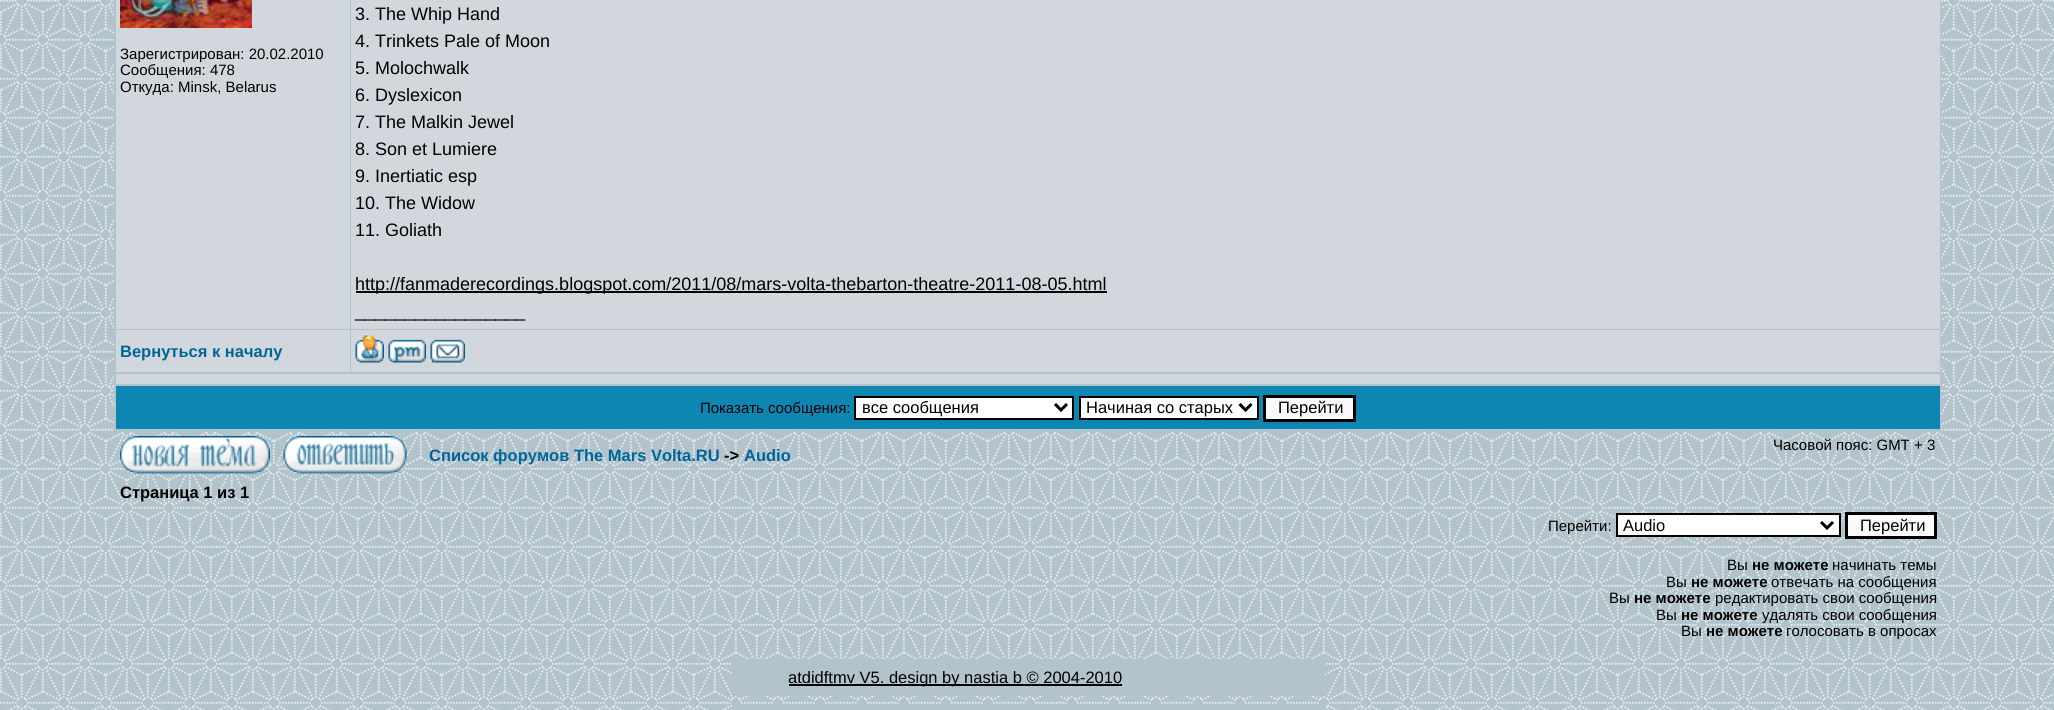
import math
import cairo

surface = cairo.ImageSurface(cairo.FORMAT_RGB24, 2054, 710)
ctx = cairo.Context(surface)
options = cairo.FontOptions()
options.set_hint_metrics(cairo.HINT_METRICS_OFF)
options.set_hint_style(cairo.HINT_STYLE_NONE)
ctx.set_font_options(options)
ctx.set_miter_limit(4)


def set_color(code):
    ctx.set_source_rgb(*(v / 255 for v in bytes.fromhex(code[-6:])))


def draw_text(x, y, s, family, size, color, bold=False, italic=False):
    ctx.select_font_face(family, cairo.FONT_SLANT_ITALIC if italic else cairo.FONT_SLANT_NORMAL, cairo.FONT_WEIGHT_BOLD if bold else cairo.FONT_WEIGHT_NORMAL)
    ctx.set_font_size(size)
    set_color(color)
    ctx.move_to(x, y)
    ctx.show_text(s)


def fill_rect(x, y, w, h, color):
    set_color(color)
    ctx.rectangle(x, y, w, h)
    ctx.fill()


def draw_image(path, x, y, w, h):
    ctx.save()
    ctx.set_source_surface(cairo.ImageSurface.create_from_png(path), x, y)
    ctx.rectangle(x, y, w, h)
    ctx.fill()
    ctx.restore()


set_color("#ffffff")
ctx.paint()
draw_image("assets/img1.png", 0, 0, 2054, 710)
fill_rect(114, 0, 1827, 431, "#b2c3cc")
fill_rect(116, 0, 234, 329, "#d1d7dc")
draw_image("assets/img2.png", 120, 0, 132, 28)
draw_text(120, 59, "Зарегистрирован: 20.02.2010", "Liberation Sans", 15, "#000000")
draw_text(120, 75, "Сообщения: 478", "Liberation Sans", 15, "#000000")
draw_text(120, 92, "Откуда: Minsk, Belarus", "Liberation Sans", 15, "#000000")
fill_rect(351, 0, 1589, 329, "#d1d7dc")
draw_text(355, 20, "3. The Whip Hand", "Liberation Sans", 18, "#000000")
draw_text(355, 47, "4. Trinkets Pale of Moon", "Liberation Sans", 18, "#000000")
draw_text(355, 74, "5. Molochwalk", "Liberation Sans", 18, "#000000")
draw_text(355, 101, "6. Dyslexicon", "Liberation Sans", 18, "#000000")
draw_text(355, 128, "7. The Malkin Jewel", "Liberation Sans", 18, "#000000")
draw_text(355, 155, "8. Son et Lumiere", "Liberation Sans", 18, "#000000")
draw_text(355, 182, "9. Inertiatic esp", "Liberation Sans", 18, "#000000")
draw_text(355, 209, "10. The Widow", "Liberation Sans", 18, "#000000")
draw_text(355, 236, "11. Goliath", "Liberation Sans", 18, "#000000")
fill_rect(356, 291, 751, 2, "#000000")
draw_text(355, 290, "http://fanmaderecordings.blogspot.com/2011/08/mars-volta-thebarton-theatre-2011-08-05.html", "Liberation Sans", 18, "#000000")
draw_text(355, 317, "_________________", "Liberation Sans", 18, "#000000")
fill_rect(116, 330, 234, 42, "#d1d7dc")
draw_text(120, 357, "Вернуться к началу", "Liberation Sans", 16.5, "#006699", bold=True)
fill_rect(351, 330, 1589, 42, "#d1d7dc")
draw_image("assets/img3.png", 355, 335, 29, 28)
draw_image("assets/img4.png", 388, 339, 38, 24)
draw_image("assets/img5.png", 430, 339, 35, 24)
fill_rect(116, 374, 1824, 10, "#d1d7dc")
fill_rect(116, 386, 1824, 43, "#0d86b1")
draw_text(700, 413, "Показать сообщения:", "Liberation Sans", 15, "#000000")
set_color("#ffffff")
ctx.rectangle(855, 397, 218, 22)
ctx.fill_preserve()
set_color("#000000")
ctx.stroke()
ctx.new_path()
ctx.move_to(1055, 404)
ctx.line_to(1061, 410)
ctx.line_to(1067, 404)
ctx.set_line_width(3)
ctx.stroke()
draw_text(862, 413, "все сообщения", "Liberation Sans", 16.5, "#000000")
set_color("#ffffff")
ctx.rectangle(1080, 397, 178, 22)
ctx.fill_preserve()
set_color("#000000")
ctx.set_line_width(2)
ctx.stroke()
ctx.new_path()
ctx.move_to(1239.5, 404)
ctx.line_to(1245.5, 410)
ctx.line_to(1251.5, 404)
ctx.set_line_width(3)
ctx.stroke()
draw_text(1086, 413, "Начиная со старых", "Liberation Sans", 16.5, "#000000")
set_color("#fafafa")
ctx.rectangle(1264.5, 396.5, 90, 24)
ctx.fill_preserve()
set_color("#000000")
ctx.stroke()
draw_text(1278, 413, "Перейти", "Liberation Sans", 16.5, "#000000")
draw_image("assets/img6.png", 120, 436, 150, 38)
draw_image("assets/img7.png", 283, 436, 124, 38)
draw_text(1773, 450, "Часовой пояс: GMT + 3", "Liberation Sans", 15, "#000000")
draw_text(429, 461, "Список форумов The Mars Volta.RU", "Liberation Sans", 16.5, "#006699", bold=True)
draw_text(724, 461, "->", "Liberation Sans", 16.5, "#000000", bold=True)
draw_text(744, 461, "Audio", "Liberation Sans", 16.5, "#006699", bold=True)
draw_text(120, 498, "Страница 1 из 1", "Liberation Sans", 16.5, "#000000", bold=True)
draw_text(1548, 531, "Перейти:", "Liberation Sans", 15, "#000000")
set_color("#ffffff")
ctx.rectangle(1617, 514, 223, 22)
ctx.fill_preserve()
set_color("#000000")
ctx.set_line_width(2)
ctx.stroke()
ctx.new_path()
ctx.move_to(1821, 522)
ctx.line_to(1827, 528)
ctx.line_to(1833, 522)
ctx.set_line_width(3)
ctx.stroke()
draw_text(1623, 531, "Audio", "Liberation Sans", 16.5, "#000000")
set_color("#fafafa")
ctx.rectangle(1846.5, 513.5, 89, 24)
ctx.fill_preserve()
set_color("#000000")
ctx.stroke()
draw_text(1860, 531, "Перейти", "Liberation Sans", 16.5, "#000000")
draw_text(1727, 570, "Вы", "Liberation Sans", 15, "#000000")
draw_text(1752, 570, "не можете", "Liberation Sans", 15, "#000000", bold=True)
draw_text(1832, 570, "начинать темы", "Liberation Sans", 15, "#000000")
draw_text(1666, 587, "Вы", "Liberation Sans", 15, "#000000")
draw_text(1691, 587, "не можете", "Liberation Sans", 15, "#000000", bold=True)
draw_text(1771, 587, "отвечать на сообщения", "Liberation Sans", 15, "#000000")
draw_text(1609, 603, "Вы", "Liberation Sans", 15, "#000000")
draw_text(1634, 603, "не можете", "Liberation Sans", 15, "#000000", bold=True)
draw_text(1715, 603, "редактировать свои сообщения", "Liberation Sans", 15, "#000000")
draw_text(1656, 620, "Вы", "Liberation Sans", 15, "#000000")
draw_text(1681, 620, "не можете", "Liberation Sans", 15, "#000000", bold=True)
draw_text(1762, 620, "удалять свои сообщения", "Liberation Sans", 15, "#000000")
draw_text(1681, 636, "Вы", "Liberation Sans", 15, "#000000")
draw_text(1706, 636, "не можете", "Liberation Sans", 15, "#000000", bold=True)
draw_text(1786, 636, "голосовать в опросах", "Liberation Sans", 15, "#000000")
fill_rect(732, 659, 593, 37, "#b2c3cc")
fill_rect(789, 684, 333, 2, "#000000")
draw_text(788, 683, "atdidftmv V5. design by nastia b © 2004-2010", "Liberation Sans", 16.5, "#000000")
fill_rect(732, 704, 593, 6, "#b2c3cc")
surface.write_to_png("output.png")
